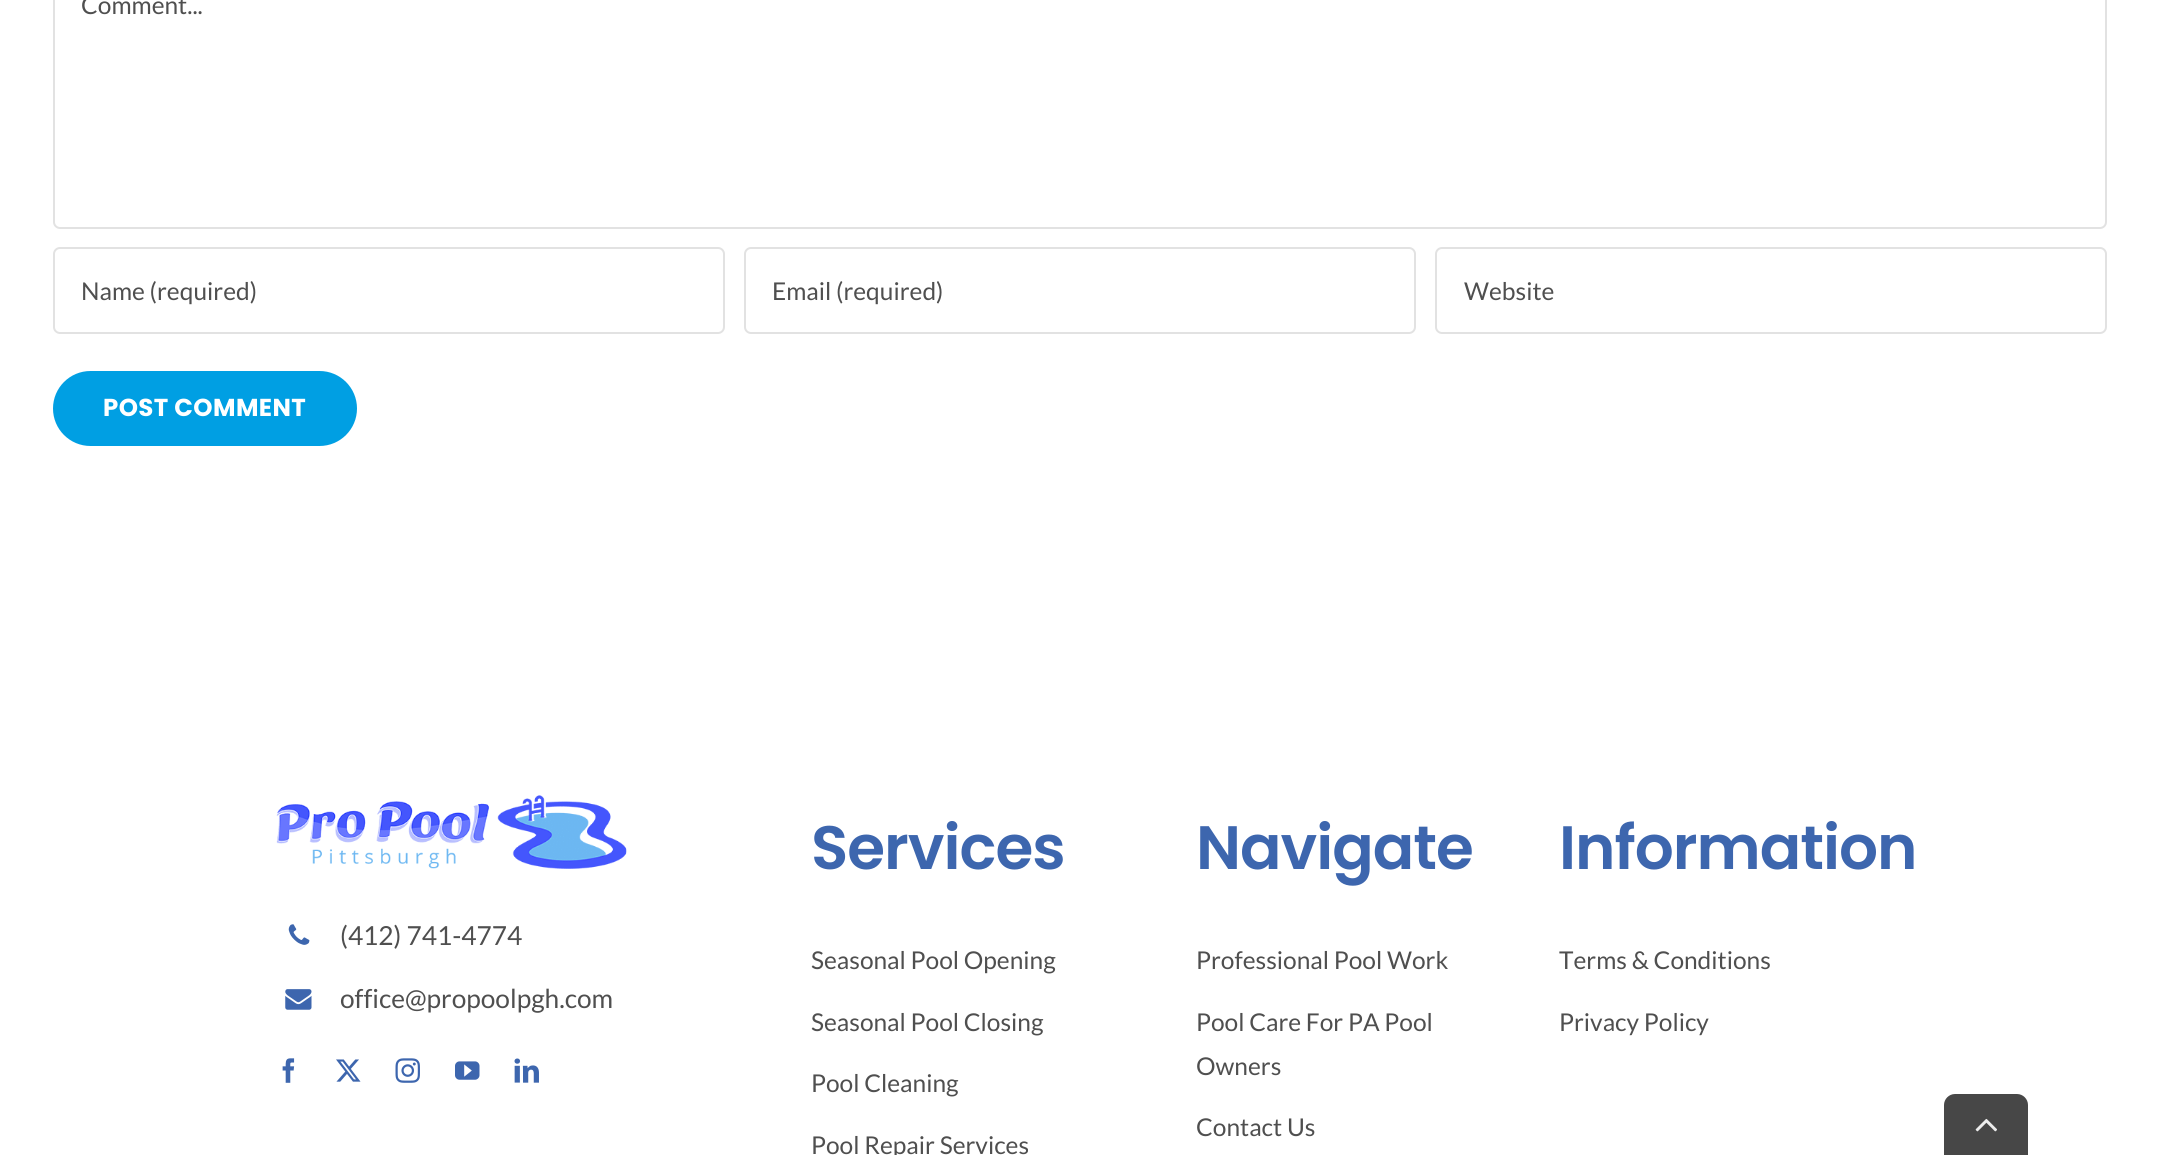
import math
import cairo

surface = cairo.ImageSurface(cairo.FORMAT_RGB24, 2159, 1155)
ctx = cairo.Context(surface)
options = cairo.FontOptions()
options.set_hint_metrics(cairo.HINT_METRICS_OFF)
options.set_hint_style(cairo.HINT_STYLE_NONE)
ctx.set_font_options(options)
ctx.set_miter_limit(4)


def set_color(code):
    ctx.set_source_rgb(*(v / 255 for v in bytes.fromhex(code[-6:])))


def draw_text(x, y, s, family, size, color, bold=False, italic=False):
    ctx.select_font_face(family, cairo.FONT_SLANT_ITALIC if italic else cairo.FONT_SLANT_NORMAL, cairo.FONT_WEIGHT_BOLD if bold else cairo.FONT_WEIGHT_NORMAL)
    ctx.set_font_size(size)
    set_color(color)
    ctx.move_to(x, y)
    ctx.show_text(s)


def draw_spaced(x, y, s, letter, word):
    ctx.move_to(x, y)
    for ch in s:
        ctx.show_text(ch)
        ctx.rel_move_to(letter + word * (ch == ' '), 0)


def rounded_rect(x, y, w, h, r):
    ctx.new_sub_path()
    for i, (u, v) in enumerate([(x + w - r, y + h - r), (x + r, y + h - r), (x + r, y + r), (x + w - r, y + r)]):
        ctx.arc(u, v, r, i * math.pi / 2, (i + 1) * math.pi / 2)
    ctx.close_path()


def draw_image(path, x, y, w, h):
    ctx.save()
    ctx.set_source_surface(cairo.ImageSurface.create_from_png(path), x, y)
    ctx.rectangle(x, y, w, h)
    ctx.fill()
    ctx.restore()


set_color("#ffffff")
ctx.paint()
rounded_rect(54, -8, 2052, 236, 6)
set_color("#e2e2e2")
ctx.stroke()
draw_text(81, 14, "Comment...", "Lato", 24.5, "#4f4f4f")
rounded_rect(54, 248, 670, 85, 6)
set_color("#e2e2e2")
ctx.stroke()
draw_text(81, 300, "Name (required)", "Lato", 24.5, "#4f4f4f")
rounded_rect(745, 248, 670, 85, 6)
set_color("#e2e2e2")
ctx.stroke()
draw_text(772, 300, "Email (required)", "Lato", 24.5, "#4f4f4f")
rounded_rect(1436, 248, 670, 85, 6)
set_color("#e2e2e2")
ctx.stroke()
draw_text(1464, 300, "Website", "Lato", 24.5, "#4f4f4f")
set_color("#009fe3")
rounded_rect(53, 371, 304, 75, 37.5)
ctx.fill()
ctx.select_font_face("Poppins", cairo.FONT_SLANT_NORMAL, cairo.FONT_WEIGHT_BOLD)
set_color("#ffffff")
draw_spaced(103, 416, "POST COMMENT", 0.4, 0)
draw_image("assets/img1.png", 276, 795, 351, 74)
draw_image("assets/img2.png", 288, 924, 22, 21)
draw_text(340, 945, "(412) 741-4774", "Lato", 26.25, "#4f4f4f")
draw_image("assets/img3.png", 285, 989, 27, 21)
draw_text(340, 1008, "office@propoolpgh.com", "Lato", 26.25, "#4f4f4f")
draw_image("assets/img4.png", 282, 1058, 13, 25)
draw_image("assets/img5.png", 336, 1059, 25, 23)
draw_image("assets/img6.png", 395, 1058, 25, 25)
draw_image("assets/img7.png", 455, 1061, 25, 19)
draw_image("assets/img8.png", 514, 1058, 25, 25)
ctx.select_font_face("Poppins SemiBold")
ctx.set_font_size(61.25)
set_color("#3d66ae")
draw_spaced(811, 869, "Services", -1, 0)
draw_text(811, 969, "Seasonal Pool Opening", "Lato", 24.5, "#4f4f4f")
draw_text(811, 1031, "Seasonal Pool Closing", "Lato", 24.5, "#4f4f4f")
draw_text(811, 1092, "Pool Cleaning", "Lato", 24.5, "#4f4f4f")
draw_text(811, 1154, "Pool Repair Services", "Lato", 24.5, "#4f4f4f")
ctx.select_font_face("Poppins SemiBold")
ctx.set_font_size(61.25)
set_color("#3d66ae")
draw_spaced(1196, 869, "Navigate", -1, 0)
draw_text(1196, 969, "Professional Pool Work", "Lato", 24.5, "#4f4f4f")
draw_text(1196, 1031, "Pool Care For PA Pool", "Lato", 24.5, "#4f4f4f")
draw_text(1196, 1075, "Owners", "Lato", 24.5, "#4f4f4f")
draw_text(1196, 1136, "Contact Us", "Lato", 24.5, "#4f4f4f")
ctx.select_font_face("Poppins SemiBold")
ctx.set_font_size(61.25)
set_color("#3d66ae")
draw_spaced(1559, 869, "Information", -1, 0)
draw_text(1559, 969, "Terms & Conditions", "Lato", 24.5, "#4f4f4f")
draw_text(1559, 1031, "Privacy Policy", "Lato", 24.5, "#4f4f4f")
set_color("#474747")
ctx.new_path()
ctx.move_to(1955, 1094)
ctx.line_to(2017, 1094)
ctx.curve_to(2023, 1094, 2028, 1099, 2028, 1105)
ctx.line_to(2028, 1155)
ctx.line_to(1944, 1155)
ctx.line_to(1944, 1105)
ctx.curve_to(1944, 1099, 1949, 1094, 1955, 1094)
ctx.close_path()
ctx.fill()
draw_image("assets/img9.png", 1975, 1118, 22, 14)
surface.write_to_png("output.png")
